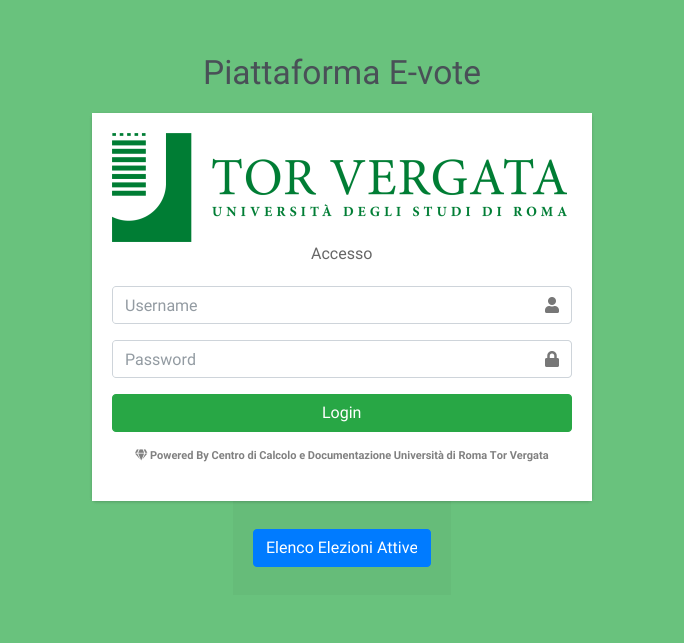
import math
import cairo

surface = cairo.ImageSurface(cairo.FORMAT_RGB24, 684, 643)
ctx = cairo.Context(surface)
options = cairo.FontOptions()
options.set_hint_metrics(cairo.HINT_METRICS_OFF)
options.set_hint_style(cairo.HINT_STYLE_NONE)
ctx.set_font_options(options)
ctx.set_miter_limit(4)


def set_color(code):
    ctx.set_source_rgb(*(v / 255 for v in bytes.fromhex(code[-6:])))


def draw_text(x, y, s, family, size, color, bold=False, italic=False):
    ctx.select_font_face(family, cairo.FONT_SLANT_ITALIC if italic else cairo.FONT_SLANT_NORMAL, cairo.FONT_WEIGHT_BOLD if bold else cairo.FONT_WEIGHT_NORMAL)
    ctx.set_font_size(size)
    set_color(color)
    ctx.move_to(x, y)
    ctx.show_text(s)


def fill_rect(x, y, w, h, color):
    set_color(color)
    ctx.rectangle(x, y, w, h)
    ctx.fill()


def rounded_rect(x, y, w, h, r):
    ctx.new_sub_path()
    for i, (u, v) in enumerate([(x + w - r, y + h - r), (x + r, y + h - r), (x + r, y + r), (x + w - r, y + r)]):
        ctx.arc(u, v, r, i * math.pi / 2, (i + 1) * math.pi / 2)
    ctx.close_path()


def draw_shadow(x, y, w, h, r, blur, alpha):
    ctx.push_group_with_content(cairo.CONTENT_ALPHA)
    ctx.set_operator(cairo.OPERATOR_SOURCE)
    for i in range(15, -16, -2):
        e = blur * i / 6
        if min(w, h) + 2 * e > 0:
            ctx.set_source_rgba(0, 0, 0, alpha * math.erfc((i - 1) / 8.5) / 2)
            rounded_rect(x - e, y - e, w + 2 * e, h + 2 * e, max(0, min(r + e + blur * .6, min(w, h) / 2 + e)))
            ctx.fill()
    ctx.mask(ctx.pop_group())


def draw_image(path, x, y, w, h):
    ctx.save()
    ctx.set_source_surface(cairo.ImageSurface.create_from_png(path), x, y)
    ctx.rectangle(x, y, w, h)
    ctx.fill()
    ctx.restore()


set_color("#69c27d")
ctx.paint()
draw_text(203, 84, "Piattaforma E-vote", "Roboto", 33.5, "#495057")
fill_rect(233, 501, 218, 94, "#66bc79")
set_color("#000000")
draw_shadow(92, 114, 500, 388, 4, 1.5, 0.2)
fill_rect(92, 113, 500, 388, "#ffffff")
draw_image("assets/img1.png", 112, 133, 455, 109)
draw_text(311, 259, "Accesso", "Roboto", 16, "#666666")
set_color("#ced4da")
ctx.set_fill_rule(cairo.FILL_RULE_EVEN_ODD)
ctx.new_path()
ctx.move_to(533, 286)
ctx.line_to(568, 286)
ctx.curve_to(570, 286, 572, 288, 572, 290)
ctx.line_to(572, 320)
ctx.curve_to(572, 322, 570, 324, 568, 324)
ctx.line_to(533, 324)
ctx.close_path()
ctx.move_to(533, 287)
ctx.line_to(568, 287)
ctx.curve_to(569.5, 287, 571, 288.5, 571, 290)
ctx.line_to(571, 320)
ctx.curve_to(571, 321.5, 569.5, 323, 568, 323)
ctx.line_to(533, 323)
ctx.close_path()
ctx.fill()
ctx.new_path()
ctx.move_to(116, 286)
ctx.line_to(534, 286)
ctx.line_to(534, 324)
ctx.line_to(116, 324)
ctx.curve_to(114, 324, 112, 322, 112, 320)
ctx.line_to(112, 290)
ctx.curve_to(112, 288, 114, 286, 116, 286)
ctx.close_path()
ctx.move_to(116, 287)
ctx.line_to(534, 287)
ctx.line_to(534, 323)
ctx.line_to(116, 323)
ctx.curve_to(114, 323, 113, 322, 113, 320)
ctx.line_to(113, 290)
ctx.curve_to(113, 288, 114, 287, 116, 287)
ctx.close_path()
ctx.fill()
draw_text(125, 311, "Username", "Roboto", 16, "#939ba2")
draw_image("assets/img2.png", 545, 297, 14, 16)
set_color("#ced4da")
ctx.new_path()
ctx.move_to(533, 340)
ctx.line_to(568, 340)
ctx.curve_to(570, 340, 572, 342, 572, 344)
ctx.line_to(572, 374)
ctx.curve_to(572, 376, 570, 378, 568, 378)
ctx.line_to(533, 378)
ctx.close_path()
ctx.move_to(533, 341)
ctx.line_to(568, 341)
ctx.curve_to(569.5, 341, 571, 342.5, 571, 344)
ctx.line_to(571, 374)
ctx.curve_to(571, 375.5, 569.5, 377, 568, 377)
ctx.line_to(533, 377)
ctx.close_path()
ctx.fill()
ctx.new_path()
ctx.move_to(116, 340)
ctx.line_to(534, 340)
ctx.line_to(534, 378)
ctx.line_to(116, 378)
ctx.curve_to(114, 378, 112, 376, 112, 374)
ctx.line_to(112, 344)
ctx.curve_to(112, 342, 114, 340, 116, 340)
ctx.close_path()
ctx.move_to(116, 341)
ctx.line_to(534, 341)
ctx.line_to(534, 377)
ctx.line_to(116, 377)
ctx.curve_to(114, 377, 113, 376, 113, 374)
ctx.line_to(113, 344)
ctx.curve_to(113, 342, 114, 341, 116, 341)
ctx.close_path()
ctx.fill()
draw_text(125, 365, "Password", "Roboto", 16, "#939ba2")
draw_image("assets/img3.png", 545, 351, 14, 16)
set_color("#28a745")
rounded_rect(112.5, 394.5, 459, 37, 3.5)
ctx.fill_preserve()
ctx.set_line_width(1)
ctx.stroke()
draw_text(322, 418, "Login", "Roboto", 16, "#ffffff")
draw_image("assets/img4.png", 135, 449, 13, 12)
draw_text(150, 459, "Powered By Centro di Calcolo e Documentazione Università di Roma Tor Vergata", "Roboto", 11, "#808080", bold=True)
set_color("#007bff")
rounded_rect(253.5, 529.5, 177, 37, 3.5)
ctx.fill_preserve()
ctx.stroke()
draw_text(266, 553, "Elenco Elezioni Attive", "Roboto", 16, "#ffffff")
surface.write_to_png("output.png")
